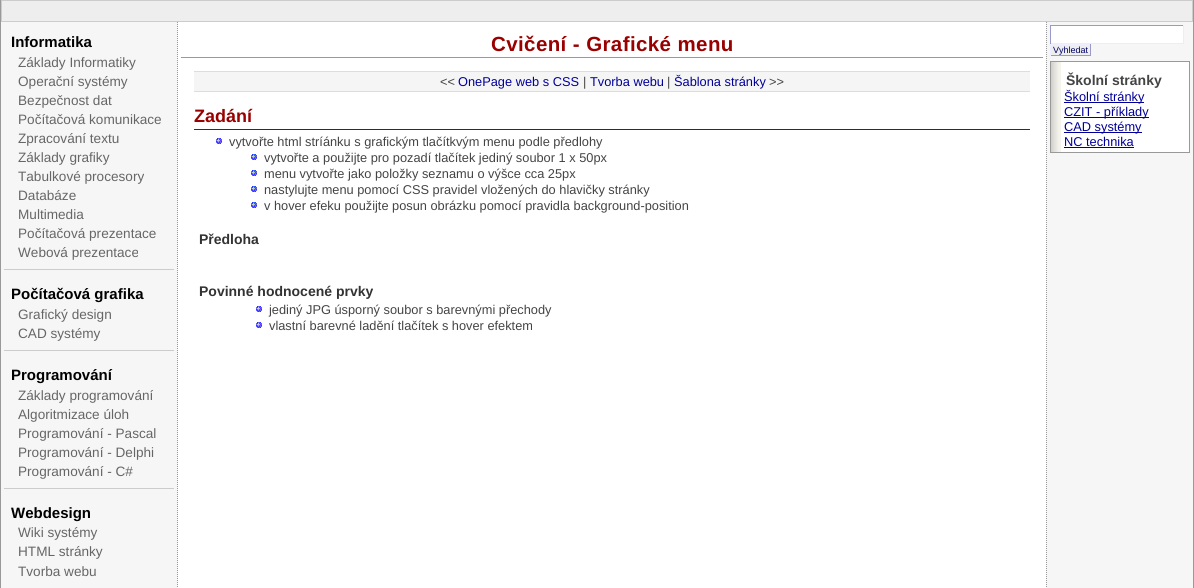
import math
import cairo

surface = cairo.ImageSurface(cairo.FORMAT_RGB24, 1194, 588)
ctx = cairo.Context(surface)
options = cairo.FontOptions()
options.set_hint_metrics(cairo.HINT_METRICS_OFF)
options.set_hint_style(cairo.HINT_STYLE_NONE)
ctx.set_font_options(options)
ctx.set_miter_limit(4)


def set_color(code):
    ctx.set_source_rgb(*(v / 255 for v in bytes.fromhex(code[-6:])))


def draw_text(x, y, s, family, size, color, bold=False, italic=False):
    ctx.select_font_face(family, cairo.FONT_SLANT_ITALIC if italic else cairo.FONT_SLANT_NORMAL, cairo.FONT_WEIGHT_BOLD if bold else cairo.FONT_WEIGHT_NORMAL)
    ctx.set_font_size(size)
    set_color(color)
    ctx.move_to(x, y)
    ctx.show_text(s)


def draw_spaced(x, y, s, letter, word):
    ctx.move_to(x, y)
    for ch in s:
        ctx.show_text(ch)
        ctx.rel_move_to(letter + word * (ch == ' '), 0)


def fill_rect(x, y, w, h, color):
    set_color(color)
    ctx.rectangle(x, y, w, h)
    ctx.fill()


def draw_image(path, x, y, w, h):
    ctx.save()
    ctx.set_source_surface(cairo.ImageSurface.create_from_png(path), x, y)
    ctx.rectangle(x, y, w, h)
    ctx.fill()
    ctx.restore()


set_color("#eeeeef")
ctx.paint()
ctx.rectangle(0.5, 0.5, 1193, 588)
set_color("#999999")
ctx.set_line_width(1)
ctx.stroke()
ctx.rectangle(1.5, 0.5, 1191, 21)
set_color("#cccccc")
ctx.stroke()
fill_rect(1, 22, 177, 566, "#f6f6f6")
ctx.new_path()
ctx.move_to(177.5, 22)
ctx.line_to(177.5, 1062)
set_color("#999999")
ctx.set_dash([1, 1])
ctx.stroke()
draw_text(11, 47, "Informatika", "Liberation Sans", 15, "#000000", bold=True)
draw_text(18, 67, "Základy Informatiky", "Liberation Sans", 13.6, "#666666")
draw_text(18, 86, "Operační systémy", "Liberation Sans", 13.6, "#666666")
draw_text(18, 105, "Bezpečnost dat", "Liberation Sans", 13.6, "#666666")
draw_text(18, 124, "Počítačová komunikace", "Liberation Sans", 13.6, "#666666")
draw_text(18, 143, "Zpracování textu", "Liberation Sans", 13.6, "#666666")
draw_text(18, 162, "Základy grafiky", "Liberation Sans", 13.6, "#666666")
draw_text(18, 181, "Tabulkové procesory", "Liberation Sans", 13.6, "#666666")
draw_text(18, 200, "Databáze", "Liberation Sans", 13.6, "#666666")
draw_text(18, 219, "Multimedia", "Liberation Sans", 13.6, "#666666")
draw_text(18, 238, "Počítačová prezentace", "Liberation Sans", 13.6, "#666666")
draw_text(18, 257, "Webová prezentace", "Liberation Sans", 13.6, "#666666")
fill_rect(4, 269, 170, 1, "#cccccc")
draw_text(11, 299, "Počítačová grafika", "Liberation Sans", 15, "#000000", bold=True)
draw_text(18, 319, "Grafický design", "Liberation Sans", 13.6, "#666666")
draw_text(18, 338, "CAD systémy", "Liberation Sans", 13.6, "#666666")
fill_rect(4, 350, 170, 1, "#cccccc")
draw_text(11, 380, "Programování", "Liberation Sans", 15, "#000000", bold=True)
draw_text(18, 400, "Základy programování", "Liberation Sans", 13.6, "#666666")
draw_text(18, 419, "Algoritmizace úloh", "Liberation Sans", 13.6, "#666666")
draw_text(18, 438, "Programování - Pascal", "Liberation Sans", 13.6, "#666666")
draw_text(18, 457, "Programování - Delphi", "Liberation Sans", 13.6, "#666666")
draw_text(18, 476, "Programování - C#", "Liberation Sans", 13.6, "#666666")
fill_rect(4, 488, 170, 1, "#cccccc")
draw_text(11, 518, "Webdesign", "Liberation Sans", 15, "#000000", bold=True)
draw_text(18, 537, "Wiki systémy", "Liberation Sans", 13.6, "#666666")
draw_text(18, 556, "HTML stránky", "Liberation Sans", 13.6, "#666666")
draw_text(18, 576, "Tvorba webu", "Liberation Sans", 13.6, "#666666")
fill_rect(178, 22, 868, 566, "#ffffff")
fill_rect(181, 57, 862, 1, "#999999")
ctx.select_font_face("Liberation Sans", cairo.FONT_SLANT_NORMAL, cairo.FONT_WEIGHT_BOLD)
ctx.set_font_size(20.5)
set_color("#990000")
draw_spaced(491, 51, "Cvičení - Grafické menu", 0.4, 0)
fill_rect(194, 72, 836, 19, "#f5f5f5")
fill_rect(194, 71, 836, 1, "#dddddd")
fill_rect(194, 91, 836, 1, "#dddddd")
draw_text(440, 86, "<<", "Liberation Sans", 12.8, "#444444")
draw_text(458, 86, "OnePage web s CSS", "Liberation Sans", 12.8, "#000099")
draw_text(583, 86, "|", "Liberation Sans", 12.8, "#444444")
draw_text(590, 86, "Tvorba webu", "Liberation Sans", 12.8, "#000099")
draw_text(667, 86, "|", "Liberation Sans", 12.8, "#444444")
draw_text(674, 86, "Šablona stránky", "Liberation Sans", 12.8, "#000099")
draw_text(769, 86, ">>", "Liberation Sans", 12.8, "#444444")
fill_rect(194, 129, 836, 1, "#990000")
draw_text(194, 122, "Zadání", "Liberation Sans", 18, "#990000", bold=True)
draw_image("assets/img1.png", 216, 138, 6, 6)
draw_text(229, 146, "vytvořte html stríánku s grafickým tlačítkvým menu podle předlohy", "Liberation Sans", 12.8, "#444444")
draw_image("assets/img1.png", 251, 154, 6, 6)
draw_text(264, 162, "vytvořte a použijte pro pozadí tlačítek jediný soubor 1 x 50px", "Liberation Sans", 12.8, "#444444")
draw_image("assets/img1.png", 251, 170, 6, 6)
draw_text(264, 178, "menu vytvořte jako položky seznamu o výšce cca 25px", "Liberation Sans", 12.8, "#444444")
draw_image("assets/img1.png", 251, 186, 6, 6)
draw_text(264, 194, "nastylujte menu pomocí CSS pravidel vložených do hlavičky stránky", "Liberation Sans", 12.8, "#444444")
draw_image("assets/img1.png", 251, 202, 6, 6)
draw_text(264, 210, "v hover efeku použijte posun obrázku pomocí pravidla background-position", "Liberation Sans", 12.8, "#444444")
draw_text(199, 244, "Předloha", "Liberation Sans", 14, "#333333", bold=True)
draw_text(199, 296, "Povinné hodnocené prvky", "Liberation Sans", 14, "#333333", bold=True)
draw_image("assets/img1.png", 256, 306, 6, 6)
draw_text(269, 314, "jediný JPG úsporný soubor s barevnými přechody", "Liberation Sans", 12.8, "#444444")
draw_image("assets/img1.png", 256, 322, 6, 6)
draw_text(269, 330, "vlastní barevné ladění tlačítek s hover efektem", "Liberation Sans", 12.8, "#444444")
fill_rect(1046, 22, 147, 566, "#f6f6f6")
ctx.new_path()
ctx.move_to(1046.5, 22)
ctx.line_to(1046.5, 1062)
set_color("#999999")
ctx.stroke()
fill_rect(1051, 26, 132, 17, "#ffffff")
fill_rect(1050, 25, 134, 1, "#9999cc")
fill_rect(1183, 25, 1, 19, "#eeeeee")
fill_rect(1050, 43, 134, 1, "#eeeeee")
fill_rect(1050, 25, 1, 19, "#9999cc")
fill_rect(1051, 45, 39, 10, "#eeeeee")
fill_rect(1050, 44, 41, 1, "#eeeeff")
fill_rect(1090, 44, 1, 12, "#9999cc")
fill_rect(1050, 55, 41, 1, "#9999cc")
fill_rect(1050, 44, 1, 12, "#eeeeff")
draw_text(1053, 53, "Vyhledat", "Liberation Sans", 9, "#000066")
fill_rect(1061, 62, 128, 90, "#ffffff")
draw_image("assets/img2.png", 1051, 62, 10, 90)
ctx.rectangle(1050.5, 61.5, 139, 91)
set_color("#999999")
ctx.set_dash([])
ctx.stroke()
draw_text(1066, 85, "Školní stránky", "Liberation Sans", 14, "#444444", bold=True)
fill_rect(1064, 102, 80, 1, "#000099")
draw_text(1064, 101, "Školní stránky", "Liberation Sans", 12.8, "#000099")
fill_rect(1064, 117, 85, 1, "#000099")
draw_text(1064, 116, "CZIT - příklady", "Liberation Sans", 12.8, "#000099")
fill_rect(1064, 132, 78, 1, "#000099")
draw_text(1064, 131, "CAD systémy", "Liberation Sans", 12.8, "#000099")
draw_text(1064, 146, "NC technika", "Liberation Sans", 12.8, "#000099")
fill_rect(1064, 147, 70, 1, "#000099")
surface.write_to_png("output.png")
